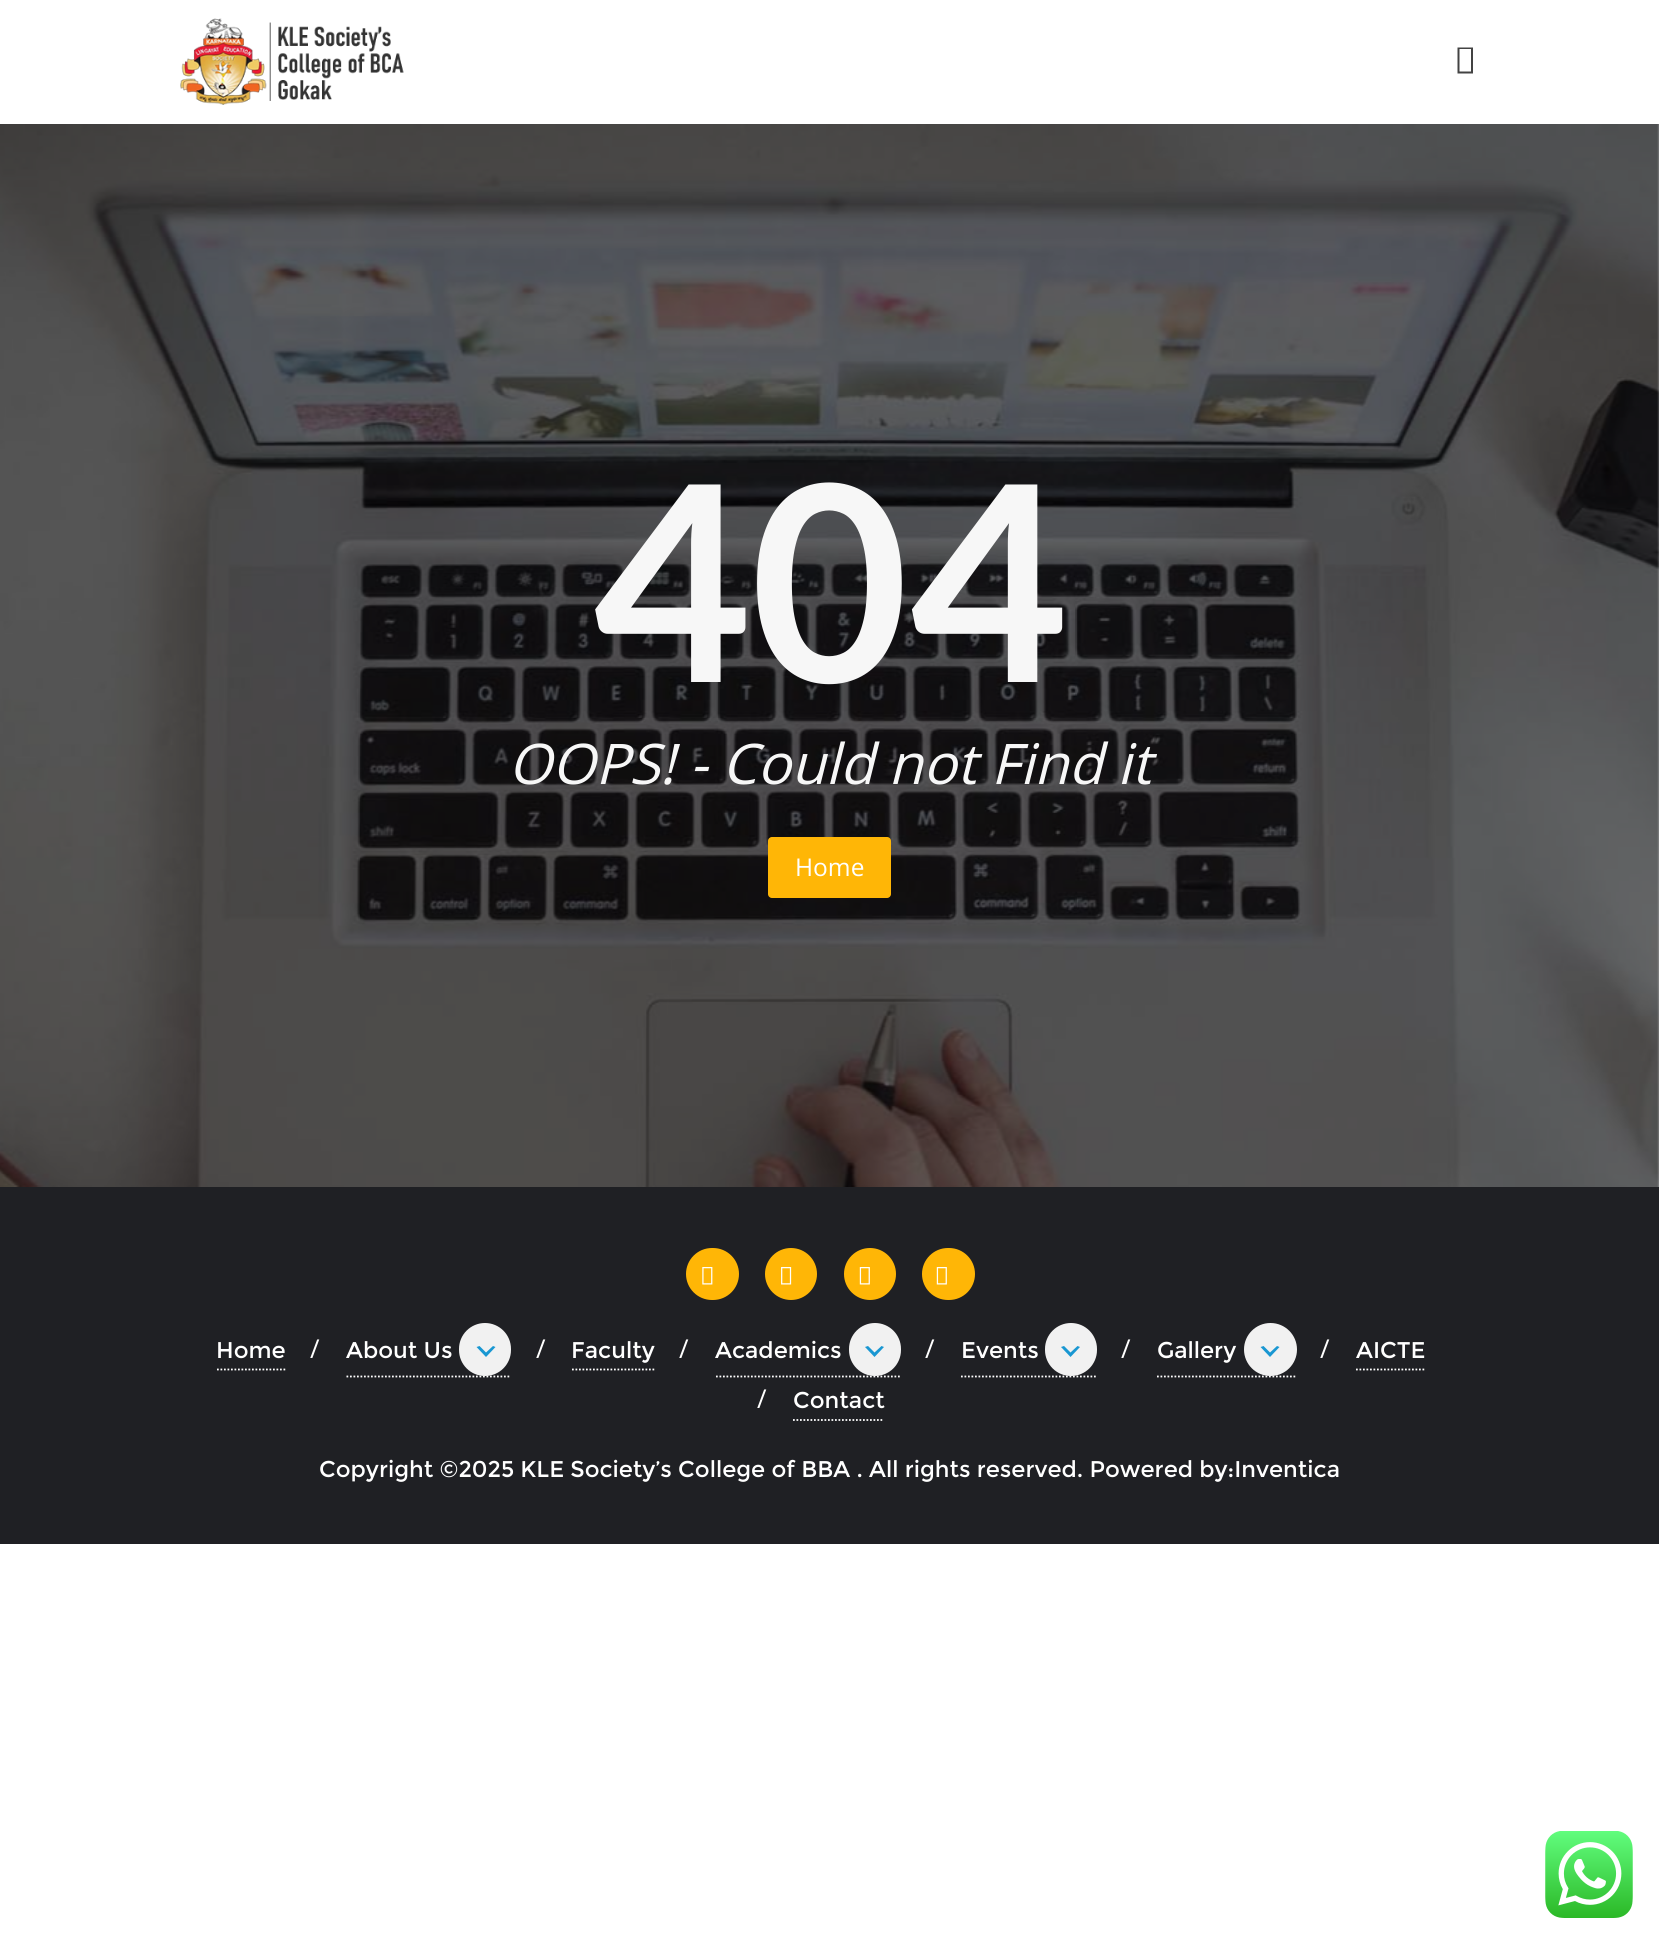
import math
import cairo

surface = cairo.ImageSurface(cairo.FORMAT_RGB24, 1659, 1943)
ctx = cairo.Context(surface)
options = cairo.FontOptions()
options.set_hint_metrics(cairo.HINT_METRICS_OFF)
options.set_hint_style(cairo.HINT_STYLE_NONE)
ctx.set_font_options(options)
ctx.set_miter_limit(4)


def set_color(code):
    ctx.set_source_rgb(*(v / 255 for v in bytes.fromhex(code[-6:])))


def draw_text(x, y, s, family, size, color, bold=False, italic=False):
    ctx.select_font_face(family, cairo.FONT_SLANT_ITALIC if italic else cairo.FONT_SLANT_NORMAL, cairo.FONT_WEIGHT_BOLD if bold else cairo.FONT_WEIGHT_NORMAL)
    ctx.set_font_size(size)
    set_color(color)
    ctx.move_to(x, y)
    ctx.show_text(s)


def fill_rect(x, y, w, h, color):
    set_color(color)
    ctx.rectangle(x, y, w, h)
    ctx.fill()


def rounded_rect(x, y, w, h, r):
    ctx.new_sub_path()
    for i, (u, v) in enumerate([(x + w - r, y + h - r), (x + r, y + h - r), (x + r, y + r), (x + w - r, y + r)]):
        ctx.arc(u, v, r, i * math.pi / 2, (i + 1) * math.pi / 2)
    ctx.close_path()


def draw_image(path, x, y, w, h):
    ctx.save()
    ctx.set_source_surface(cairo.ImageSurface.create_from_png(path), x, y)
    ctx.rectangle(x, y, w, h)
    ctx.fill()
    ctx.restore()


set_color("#ffffff")
ctx.paint()
draw_image("assets/img1.png", 180, 18, 224, 87)
set_color("#434343")
ctx.new_path()
ctx.move_to(1457.5, 73.5)
ctx.line_to(1457.5, 47.5)
ctx.line_to(1473, 47.5)
ctx.line_to(1473, 73.5)
ctx.close_path()
ctx.move_to(1459.5, 71.5)
ctx.line_to(1471, 71.5)
ctx.line_to(1471, 49)
ctx.line_to(1459.5, 49)
ctx.close_path()
ctx.fill()
draw_image("assets/img2.png", 0, 124, 1659, 1063)
draw_text(592, 682, "404", "Lato", 273, "#f7f7f7", bold=True)
draw_text(508, 784, "OOPS! - Could not Find it", "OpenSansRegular", 56, "#f7f7f7", italic=True)
set_color("#ffb606")
rounded_rect(768, 837, 123, 61, 4)
ctx.fill()
draw_text(795, 876, "Home", "OpenSansRegular", 24.5, "#ffffff")
fill_rect(0, 1187, 1659, 357, "#1f2024")
set_color("#ffb606")
rounded_rect(686, 1248, 53, 52, 26)
ctx.fill()
draw_image("assets/img3.png", 702, 1267, 11, 18)
ctx.arc(791, 1274, 26, 0, 2 * math.pi)
ctx.fill()
draw_image("assets/img4.png", 781, 1267, 11, 18)
ctx.arc(870, 1274, 26, 0, 2 * math.pi)
ctx.fill()
draw_image("assets/img5.png", 859, 1267, 11, 18)
rounded_rect(922, 1248, 53, 52, 26)
ctx.fill()
draw_image("assets/img5.png", 936, 1267, 11, 18)
ctx.new_path()
ctx.move_to(217, 1369.5)
ctx.line_to(287, 1369.5)
set_color("#ffffff")
ctx.set_line_width(1.8)
ctx.set_dash([1.75, 1.75])
ctx.stroke()
draw_text(216, 1358, "Home", "Montserrat", 22.75, "#ffffff")
draw_text(310, 1358, "/", "OpenSansRegular", 26, "#ffffff")
ctx.new_path()
ctx.move_to(346.5, 1376.5)
ctx.line_to(511, 1376.5)
ctx.stroke()
draw_text(346, 1358, "About Us", "Montserrat", 22.75, "#ffffff")
set_color("#f1f1f1")
rounded_rect(459, 1323, 52, 53, 26)
ctx.fill()
set_color("#1997d2")
ctx.new_path()
ctx.move_to(479.5, 1346)
ctx.line_to(486, 1352.5)
ctx.line_to(493, 1346)
ctx.line_to(495.5, 1347)
ctx.line_to(486, 1357)
ctx.line_to(476.5, 1347)
ctx.close_path()
ctx.fill()
draw_text(536, 1358, "/", "OpenSansRegular", 26, "#ffffff")
ctx.new_path()
ctx.move_to(572, 1369.5)
ctx.line_to(654.5, 1369.5)
ctx.stroke()
draw_text(571, 1358, "Faculty", "Montserrat", 22.75, "#ffffff")
draw_text(679, 1358, "/", "OpenSansRegular", 26, "#ffffff")
ctx.new_path()
ctx.move_to(716, 1376.5)
ctx.line_to(901, 1376.5)
ctx.stroke()
draw_text(715, 1358, "Academics", "Montserrat", 22.75, "#ffffff")
set_color("#f1f1f1")
rounded_rect(849, 1323, 52, 53, 26)
ctx.fill()
set_color("#1997d2")
ctx.new_path()
ctx.move_to(868, 1346)
ctx.line_to(874.5, 1352.5)
ctx.line_to(881.5, 1346)
ctx.line_to(884, 1347)
ctx.line_to(874.5, 1357)
ctx.line_to(865, 1347)
ctx.close_path()
ctx.fill()
draw_text(925, 1358, "/", "OpenSansRegular", 26, "#ffffff")
ctx.new_path()
ctx.move_to(961, 1376.5)
ctx.line_to(1097, 1376.5)
ctx.stroke()
draw_text(961, 1358, "Events", "Montserrat", 22.75, "#ffffff")
set_color("#f1f1f1")
rounded_rect(1045, 1323, 52, 53, 26)
ctx.fill()
set_color("#1997d2")
ctx.new_path()
ctx.move_to(1064, 1346)
ctx.line_to(1070.5, 1352.5)
ctx.line_to(1077.5, 1346)
ctx.line_to(1080, 1347)
ctx.line_to(1070.5, 1357)
ctx.line_to(1061, 1347)
ctx.close_path()
ctx.fill()
draw_text(1121, 1358, "/", "OpenSansRegular", 26, "#ffffff")
ctx.new_path()
ctx.move_to(1157, 1376.5)
ctx.line_to(1297, 1376.5)
ctx.stroke()
draw_text(1157, 1358, "Gallery", "Montserrat", 22.75, "#ffffff")
set_color("#f1f1f1")
ctx.new_path()
ctx.arc(1270.5, 1349.5, 26.5, 0, 2 * math.pi)
ctx.fill()
set_color("#1997d2")
ctx.new_path()
ctx.move_to(1263.5, 1346)
ctx.line_to(1270, 1352.5)
ctx.line_to(1277, 1346)
ctx.line_to(1279.5, 1347)
ctx.line_to(1270, 1357)
ctx.line_to(1260.5, 1347)
ctx.close_path()
ctx.fill()
draw_text(1320, 1358, "/", "OpenSansRegular", 26, "#ffffff")
ctx.new_path()
ctx.move_to(1356, 1369.5)
ctx.line_to(1424.5, 1369.5)
ctx.stroke()
draw_text(1356, 1358, "AICTE", "Montserrat", 22.75, "#ffffff")
draw_text(757, 1408, "/", "OpenSansRegular", 26, "#ffffff")
ctx.new_path()
ctx.move_to(793, 1420)
ctx.line_to(884, 1420)
ctx.stroke()
draw_text(793, 1408, "Contact", "Montserrat", 22.75, "#ffffff")
draw_text(319, 1477, "Copyright ©2025 KLE Society’s College of BBA . All rights reserved. Powered by:Inventica", "Montserrat", 22.75, "#ffffff")
draw_image("assets/img6.png", 1545, 1831, 88, 87)
surface.write_to_png("output.png")
